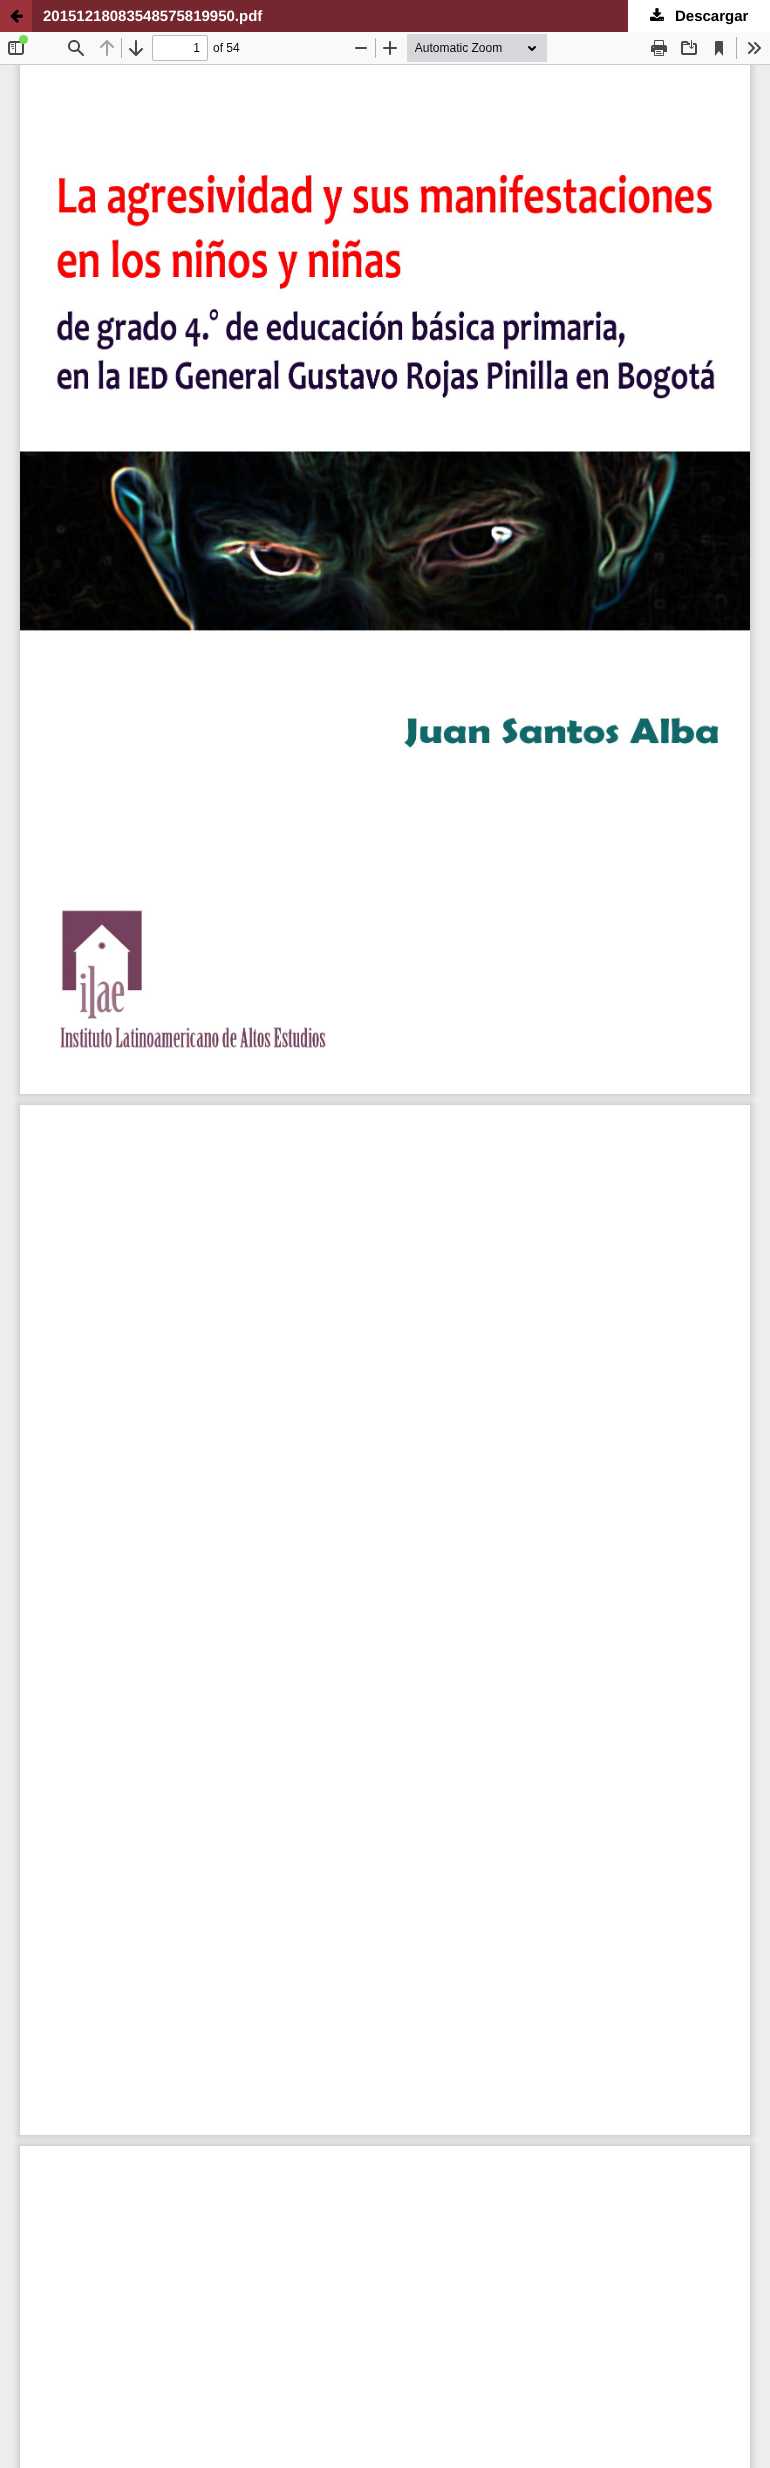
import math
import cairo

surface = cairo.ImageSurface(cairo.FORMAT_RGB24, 770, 2468)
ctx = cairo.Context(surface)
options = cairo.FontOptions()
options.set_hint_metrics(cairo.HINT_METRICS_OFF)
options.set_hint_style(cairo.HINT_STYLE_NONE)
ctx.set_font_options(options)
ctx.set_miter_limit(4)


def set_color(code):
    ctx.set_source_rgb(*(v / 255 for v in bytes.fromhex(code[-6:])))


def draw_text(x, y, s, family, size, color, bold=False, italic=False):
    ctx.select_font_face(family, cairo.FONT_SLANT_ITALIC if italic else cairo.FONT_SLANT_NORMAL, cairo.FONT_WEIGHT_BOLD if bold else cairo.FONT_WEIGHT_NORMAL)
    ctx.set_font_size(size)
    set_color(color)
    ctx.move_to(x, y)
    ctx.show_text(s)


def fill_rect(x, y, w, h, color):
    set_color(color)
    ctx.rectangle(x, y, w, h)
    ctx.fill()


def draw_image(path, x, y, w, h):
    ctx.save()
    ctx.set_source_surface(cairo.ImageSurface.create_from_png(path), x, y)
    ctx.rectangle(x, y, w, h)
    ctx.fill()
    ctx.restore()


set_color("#ffffff")
ctx.paint()
fill_rect(32, 0, 596, 32, "#76262e")
fill_rect(0, 0, 32, 32, "#9d323d")
draw_image("assets/img1.png", 10, 9, 13, 14)
draw_text(43, 21, "20151218083548575819950.pdf", "Liberation Sans", 15, "#ffffff", bold=True)
draw_image("assets/img2.png", 650, 8, 14, 13)
draw_text(675, 21, "Descargar", "Liberation Sans", 15, "#000000", bold=True)
draw_image("assets/img3.png", 0, 32, 770, 2436)
surface.write_to_png("output.png")
